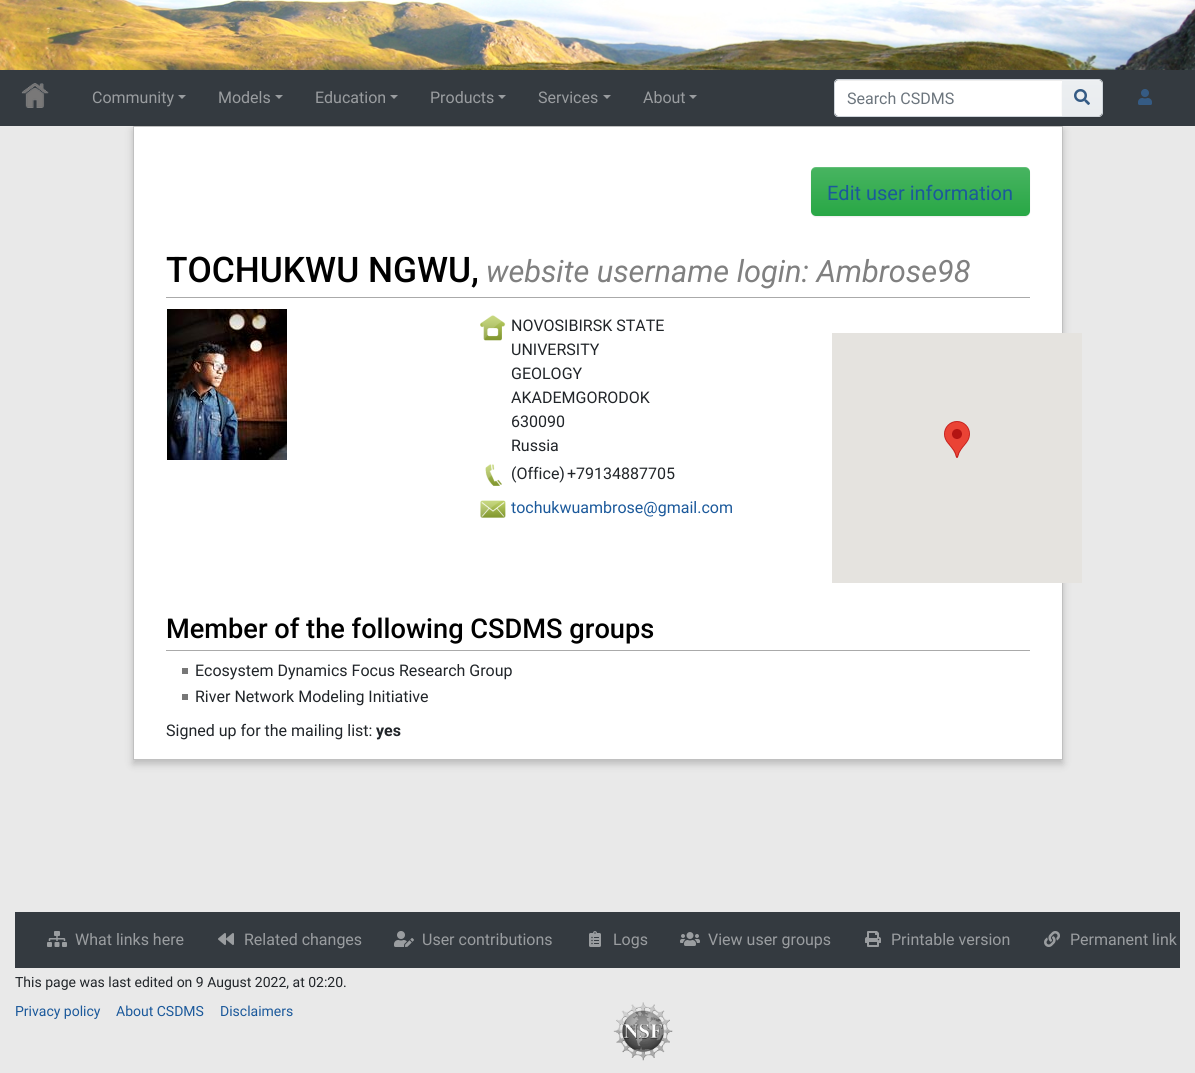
import math
import cairo

surface = cairo.ImageSurface(cairo.FORMAT_RGB24, 1195, 1073)
ctx = cairo.Context(surface)
options = cairo.FontOptions()
options.set_hint_metrics(cairo.HINT_METRICS_OFF)
options.set_hint_style(cairo.HINT_STYLE_NONE)
ctx.set_font_options(options)
ctx.set_miter_limit(4)


def set_color(code):
    ctx.set_source_rgb(*(v / 255 for v in bytes.fromhex(code[-6:])))


def draw_text(x, y, s, family, size, color, bold=False, italic=False):
    ctx.select_font_face(family, cairo.FONT_SLANT_ITALIC if italic else cairo.FONT_SLANT_NORMAL, cairo.FONT_WEIGHT_BOLD if bold else cairo.FONT_WEIGHT_NORMAL)
    ctx.set_font_size(size)
    set_color(color)
    ctx.move_to(x, y)
    ctx.show_text(s)


def fill_rect(x, y, w, h, color):
    set_color(color)
    ctx.rectangle(x, y, w, h)
    ctx.fill()


def rounded_rect(x, y, w, h, r):
    ctx.new_sub_path()
    for i, (u, v) in enumerate([(x + w - r, y + h - r), (x + r, y + h - r), (x + r, y + r), (x + w - r, y + r)]):
        ctx.arc(u, v, r, i * math.pi / 2, (i + 1) * math.pi / 2)
    ctx.close_path()


def draw_shadow(x, y, w, h, r, blur, alpha):
    ctx.push_group_with_content(cairo.CONTENT_ALPHA)
    ctx.set_operator(cairo.OPERATOR_SOURCE)
    for i in range(15, -16, -2):
        e = blur * i / 6
        if min(w, h) + 2 * e > 0:
            ctx.set_source_rgba(0, 0, 0, alpha * math.erfc((i - 1) / 8.5) / 2)
            rounded_rect(x - e, y - e, w + 2 * e, h + 2 * e, max(0, min(r + e + blur * .6, min(w, h) / 2 + e)))
            ctx.fill()
    ctx.mask(ctx.pop_group())


def draw_image(path, x, y, w, h):
    ctx.save()
    ctx.set_source_surface(cairo.ImageSurface.create_from_png(path), x, y)
    ctx.rectangle(x, y, w, h)
    ctx.fill()
    ctx.restore()


set_color("#e9e9e9")
ctx.paint()
draw_image("assets/img1.png", 0, 0, 1195, 70)
fill_rect(0, 70, 1195, 56, "#343a40")
draw_image("assets/img2.png", 21, 83, 28, 25)
draw_text(92, 103, "Community", "Roboto", 16, "#9a9da0")
ctx.new_path()
ctx.move_to(178, 95)
ctx.line_to(186, 95)
ctx.line_to(182, 99)
ctx.close_path()
ctx.fill()
draw_text(218, 103, "Models", "Roboto", 16, "#9a9da0")
ctx.new_path()
ctx.move_to(275, 95)
ctx.line_to(283, 95)
ctx.line_to(279, 99)
ctx.close_path()
ctx.fill()
draw_text(315, 103, "Education", "Roboto", 16, "#9a9da0")
ctx.new_path()
ctx.move_to(390, 95)
ctx.line_to(398, 95)
ctx.line_to(394, 99)
ctx.close_path()
ctx.fill()
draw_text(430, 103, "Products", "Roboto", 16, "#9a9da0")
ctx.new_path()
ctx.move_to(498, 95)
ctx.line_to(506, 95)
ctx.line_to(502, 99)
ctx.close_path()
ctx.fill()
draw_text(538, 103, "Services", "Roboto", 16, "#9a9da0")
ctx.new_path()
ctx.move_to(603, 95)
ctx.line_to(611, 95)
ctx.line_to(607, 99)
ctx.close_path()
ctx.fill()
draw_text(643, 103, "About", "Roboto", 16, "#9a9da0")
ctx.new_path()
ctx.move_to(689, 95)
ctx.line_to(697, 95)
ctx.line_to(693, 99)
ctx.close_path()
ctx.fill()
set_color("#ffffff")
ctx.new_path()
ctx.move_to(838, 80)
ctx.line_to(1062, 80)
ctx.line_to(1062, 116)
ctx.line_to(838, 116)
ctx.curve_to(836.5, 116, 835, 114.5, 835, 113)
ctx.line_to(835, 83)
ctx.curve_to(835, 81.5, 836.5, 80, 838, 80)
ctx.close_path()
ctx.fill()
ctx.set_source_rgba(0, 0, 0, 0.07)
ctx.new_path()
ctx.move_to(838, 81)
ctx.line_to(1062, 81)
ctx.line_to(1062, 80)
ctx.line_to(838, 80)
ctx.curve_to(836, 80, 835, 82, 835, 84)
ctx.curve_to(835, 82, 836, 81, 838, 81)
ctx.close_path()
ctx.fill()
ctx.new_path()
ctx.move_to(838, 79.5)
ctx.line_to(1062.5, 79.5)
ctx.line_to(1062.5, 116.5)
ctx.line_to(838, 116.5)
ctx.curve_to(836, 116.5, 834.5, 115, 834.5, 113)
ctx.line_to(834.5, 83)
ctx.curve_to(834.5, 81, 836, 79.5, 838, 79.5)
ctx.close_path()
set_color("#ced4da")
ctx.set_line_width(1)
ctx.stroke()
draw_text(847, 104, "Search CSDMS", "Roboto", 16, "#6c757d")
set_color("#000000")
draw_shadow(1062, 80, 41, 38, 4, 0.5, 0.07)
gradient = cairo.LinearGradient(1082, 80, 1082, 116)
gradient.add_color_stop_rgba(0, 0.925, 0.937, 0.945, 1)
gradient.add_color_stop_rgba(1, 0.914, 0.925, 0.937, 1)
ctx.set_source(gradient)
ctx.new_path()
ctx.move_to(1062, 80)
ctx.line_to(1099, 80)
ctx.curve_to(1100.5, 80, 1102, 81.5, 1102, 83)
ctx.line_to(1102, 113)
ctx.curve_to(1102, 114.5, 1100.5, 116, 1099, 116)
ctx.line_to(1062, 116)
ctx.close_path()
ctx.fill()
ctx.set_source_rgba(1, 1, 1, 0.15)
ctx.new_path()
ctx.move_to(1062, 81)
ctx.line_to(1099, 81)
ctx.curve_to(1101, 81, 1102, 82, 1102, 84)
ctx.line_to(1102, 83)
ctx.curve_to(1102, 81, 1101, 80, 1099, 80)
ctx.line_to(1062, 80)
ctx.close_path()
ctx.fill()
set_color("#ced4da")
ctx.set_fill_rule(cairo.FILL_RULE_EVEN_ODD)
ctx.new_path()
ctx.move_to(1062, 79)
ctx.line_to(1099, 79)
ctx.curve_to(1101, 79, 1103, 81, 1103, 83)
ctx.line_to(1103, 113)
ctx.curve_to(1103, 115, 1101, 117, 1099, 117)
ctx.line_to(1062, 117)
ctx.close_path()
ctx.move_to(1062, 80)
ctx.line_to(1099, 80)
ctx.curve_to(1101, 80, 1102, 81, 1102, 83)
ctx.line_to(1102, 113)
ctx.curve_to(1102, 115, 1101, 116, 1099, 116)
ctx.line_to(1062, 116)
ctx.close_path()
ctx.fill()
draw_image("assets/img3.png", 1074, 89, 16, 16)
draw_image("assets/img4.png", 1138, 89, 14, 16)
set_color("#000000")
draw_shadow(133, 130, 930, 634, 0, 4, 0.2)
set_color("#ffffff")
ctx.rectangle(133.5, 126.5, 929, 633)
ctx.fill_preserve()
set_color("#c0c0c0")
ctx.stroke()
set_color("#000000")
draw_shadow(811, 168, 219, 49, 5, 0.5, 0.07)
gradient = cairo.LinearGradient(921, 167, 921, 216)
gradient.add_color_stop_rgba(0, 0.282, 0.706, 0.38, 1)
gradient.add_color_stop_rgba(1, 0.157, 0.655, 0.271, 1)
ctx.set_source(gradient)
rounded_rect(811, 167, 219, 49, 5)
ctx.fill()
ctx.set_source_rgba(1, 1, 1, 0.15)
ctx.set_fill_rule(cairo.FILL_RULE_WINDING)
ctx.new_path()
ctx.move_to(816, 168)
ctx.line_to(1025, 168)
ctx.curve_to(1028, 168, 1030, 170, 1030, 173)
ctx.curve_to(1030, 170, 1028, 167, 1025, 167)
ctx.line_to(815, 167)
ctx.curve_to(812, 168, 811, 170, 811, 173)
ctx.curve_to(811, 170, 813, 168, 816, 168)
ctx.close_path()
ctx.fill()
draw_text(827, 200, "Edit user information", "Roboto", 20, "#1b599b")
fill_rect(166, 297, 864, 1, "#aaaaaa")
draw_text(166, 282, "TOCHUKWU NGWU,", "Roboto Medium", 35.25, "#000000")
draw_text(486, 282, "website username login: Ambrose98", "Roboto", 30.75, "#808080", italic=True)
draw_image("assets/img5.png", 167, 309, 120, 151)
draw_image("assets/img6.png", 480, 315, 26, 26)
draw_text(511, 331, "NOVOSIBIRSK STATE", "Roboto", 16, "#212529")
draw_text(511, 355, "UNIVERSITY", "Roboto", 16, "#212529")
draw_text(511, 379, "GEOLOGY", "Roboto", 16, "#212529")
draw_text(511, 403, "AKADEMGORODOK", "Roboto", 16, "#212529")
draw_text(511, 427, "630090", "Roboto", 16, "#212529")
draw_text(511, 451, "Russia", "Roboto", 16, "#212529")
draw_image("assets/img7.png", 485, 464, 17, 22)
draw_text(511, 479, "(Office)", "Roboto", 16, "#212529")
draw_text(567, 479, "+79134887705", "Roboto", 16, "#212529")
draw_image("assets/img8.png", 480, 500, 26, 18)
draw_text(511, 513, "tochukwuambrose@gmail.com", "Roboto", 16, "#1b599b")
fill_rect(832, 333, 250, 250, "#e5e3df")
draw_image("assets/img9.png", 944, 421, 26, 37)
fill_rect(166, 650, 864, 1, "#aaaaaa")
draw_text(166, 638, "Member of the following CSDMS groups", "Roboto Medium", 27.2, "#000000")
fill_rect(182, 668, 6, 6, "#777777")
draw_text(195, 676, "Ecosystem Dynamics Focus Research Group", "Roboto", 16, "#212529")
fill_rect(182, 694, 6, 6, "#777777")
draw_text(195, 702, "River Network Modeling Initiative", "Roboto", 16, "#212529")
draw_text(166, 736, "Signed up for the mailing list:", "Roboto", 16, "#212529")
draw_text(376, 736, "yes", "Roboto", 16, "#212529", bold=True)
fill_rect(15, 912, 1165, 56, "#343a40")
draw_image("assets/img10.png", 47, 931, 20, 16)
draw_text(75, 945, "What links here", "Roboto", 16, "#9a9da0")
draw_image("assets/img11.png", 218, 933, 16, 12)
draw_text(244, 945, "Related changes", "Roboto", 16, "#9a9da0")
draw_image("assets/img12.png", 394, 931, 20, 16)
draw_text(422, 945, "User contributions", "Roboto", 16, "#9a9da0")
draw_image("assets/img13.png", 589, 931, 12, 16)
draw_text(613, 945, "Logs", "Roboto", 16, "#9a9da0")
draw_image("assets/img14.png", 680, 932, 20, 14)
draw_text(708, 945, "View user groups", "Roboto", 16, "#9a9da0")
draw_image("assets/img15.png", 865, 931, 16, 16)
draw_text(891, 945, "Printable version", "Roboto", 16, "#9a9da0")
draw_image("assets/img16.png", 1044, 931, 16, 16)
draw_text(1070, 945, "Permanent link", "Roboto", 16, "#9a9da0")
draw_text(15, 987, "This page was last edited on 9 August 2022, at 02:20.", "Roboto", 14, "#212529")
draw_text(15, 1016, "Privacy policy", "Roboto", 14, "#1b599b")
draw_text(116, 1016, "About CSDMS", "Roboto", 14, "#1b599b")
draw_text(220, 1016, "Disclaimers", "Roboto", 14, "#1b599b")
draw_image("assets/img17.png", 613, 1002, 60, 59)
surface.write_to_png("output.png")
